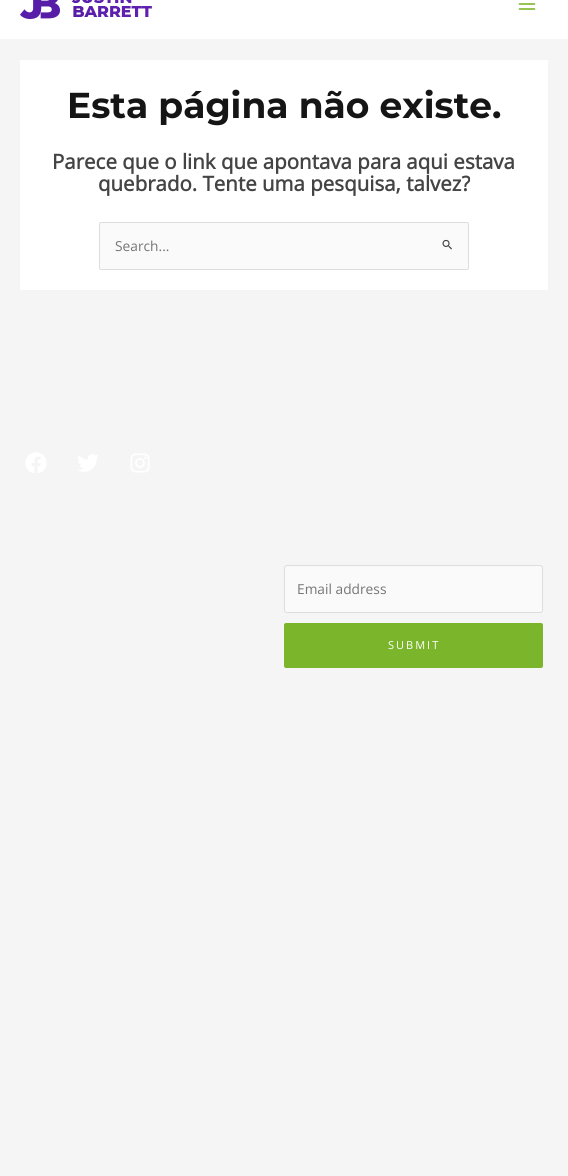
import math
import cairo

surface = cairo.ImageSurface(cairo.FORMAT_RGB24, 568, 1176)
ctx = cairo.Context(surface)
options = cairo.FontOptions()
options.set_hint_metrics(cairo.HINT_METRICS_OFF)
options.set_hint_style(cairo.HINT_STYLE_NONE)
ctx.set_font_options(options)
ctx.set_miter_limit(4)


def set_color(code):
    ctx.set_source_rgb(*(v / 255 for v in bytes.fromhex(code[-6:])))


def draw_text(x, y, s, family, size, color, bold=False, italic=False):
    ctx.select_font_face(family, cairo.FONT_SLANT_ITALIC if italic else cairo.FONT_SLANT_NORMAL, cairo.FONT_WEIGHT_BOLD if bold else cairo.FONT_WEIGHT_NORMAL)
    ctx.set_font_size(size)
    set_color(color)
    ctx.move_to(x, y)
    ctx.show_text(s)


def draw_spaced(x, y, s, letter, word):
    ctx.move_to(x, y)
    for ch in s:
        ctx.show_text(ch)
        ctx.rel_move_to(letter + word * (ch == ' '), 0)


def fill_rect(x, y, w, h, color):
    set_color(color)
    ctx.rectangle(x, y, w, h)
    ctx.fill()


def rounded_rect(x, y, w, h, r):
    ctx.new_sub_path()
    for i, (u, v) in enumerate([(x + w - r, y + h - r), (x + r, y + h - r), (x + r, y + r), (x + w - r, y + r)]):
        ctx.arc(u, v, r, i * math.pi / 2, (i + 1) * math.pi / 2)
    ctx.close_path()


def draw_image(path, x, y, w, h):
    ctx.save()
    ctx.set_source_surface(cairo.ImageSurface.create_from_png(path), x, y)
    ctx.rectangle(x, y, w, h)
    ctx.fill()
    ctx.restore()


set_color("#f5f5f5")
ctx.paint()
fill_rect(0, 0, 568, 39, "#ffffff")
draw_image("assets/img1.png", 20, 0, 132, 19)
draw_image("assets/img2.png", 518, 3, 18, 7)
fill_rect(20, 60, 528, 230, "#ffffff")
draw_text(67, 118, "Esta página não existe.", "Montserrat", 36, "#151515", bold=True)
draw_text(52, 169, "Parece que o link que apontava para aqui estava", "Open Sans", 20.5, "#444444", bold=True)
draw_text(98, 191, "quebrado. Tente uma pesquisa, talvez?", "Open Sans", 20.5, "#444444", bold=True)
set_color("#fafafa")
rounded_rect(99.5, 222.5, 369, 47, 1.5)
ctx.fill_preserve()
set_color("#dddddd")
ctx.set_line_width(1)
ctx.stroke()
draw_text(115, 251, "Search...", "Open Sans", 13.75, "#757575")
draw_image("assets/img3.png", 442, 239, 10, 11)
draw_image("assets/img4.png", 25, 452, 22, 21)
draw_image("assets/img5.png", 78, 454, 20, 18)
draw_image("assets/img6.png", 130, 453, 20, 20)
set_color("#fafafa")
rounded_rect(284.5, 565.5, 258, 47, 2.5)
ctx.fill_preserve()
set_color("#dddddd")
ctx.stroke()
draw_text(297, 594, "Email address", "Open Sans", 13.75, "#757575")
set_color("#7bb52b")
rounded_rect(284, 623, 259, 45, 2)
ctx.fill()
ctx.set_font_size(11)
set_color("#ffffff")
draw_spaced(388, 649, "SUBMIT", 2, 0)
surface.write_to_png("output.png")
